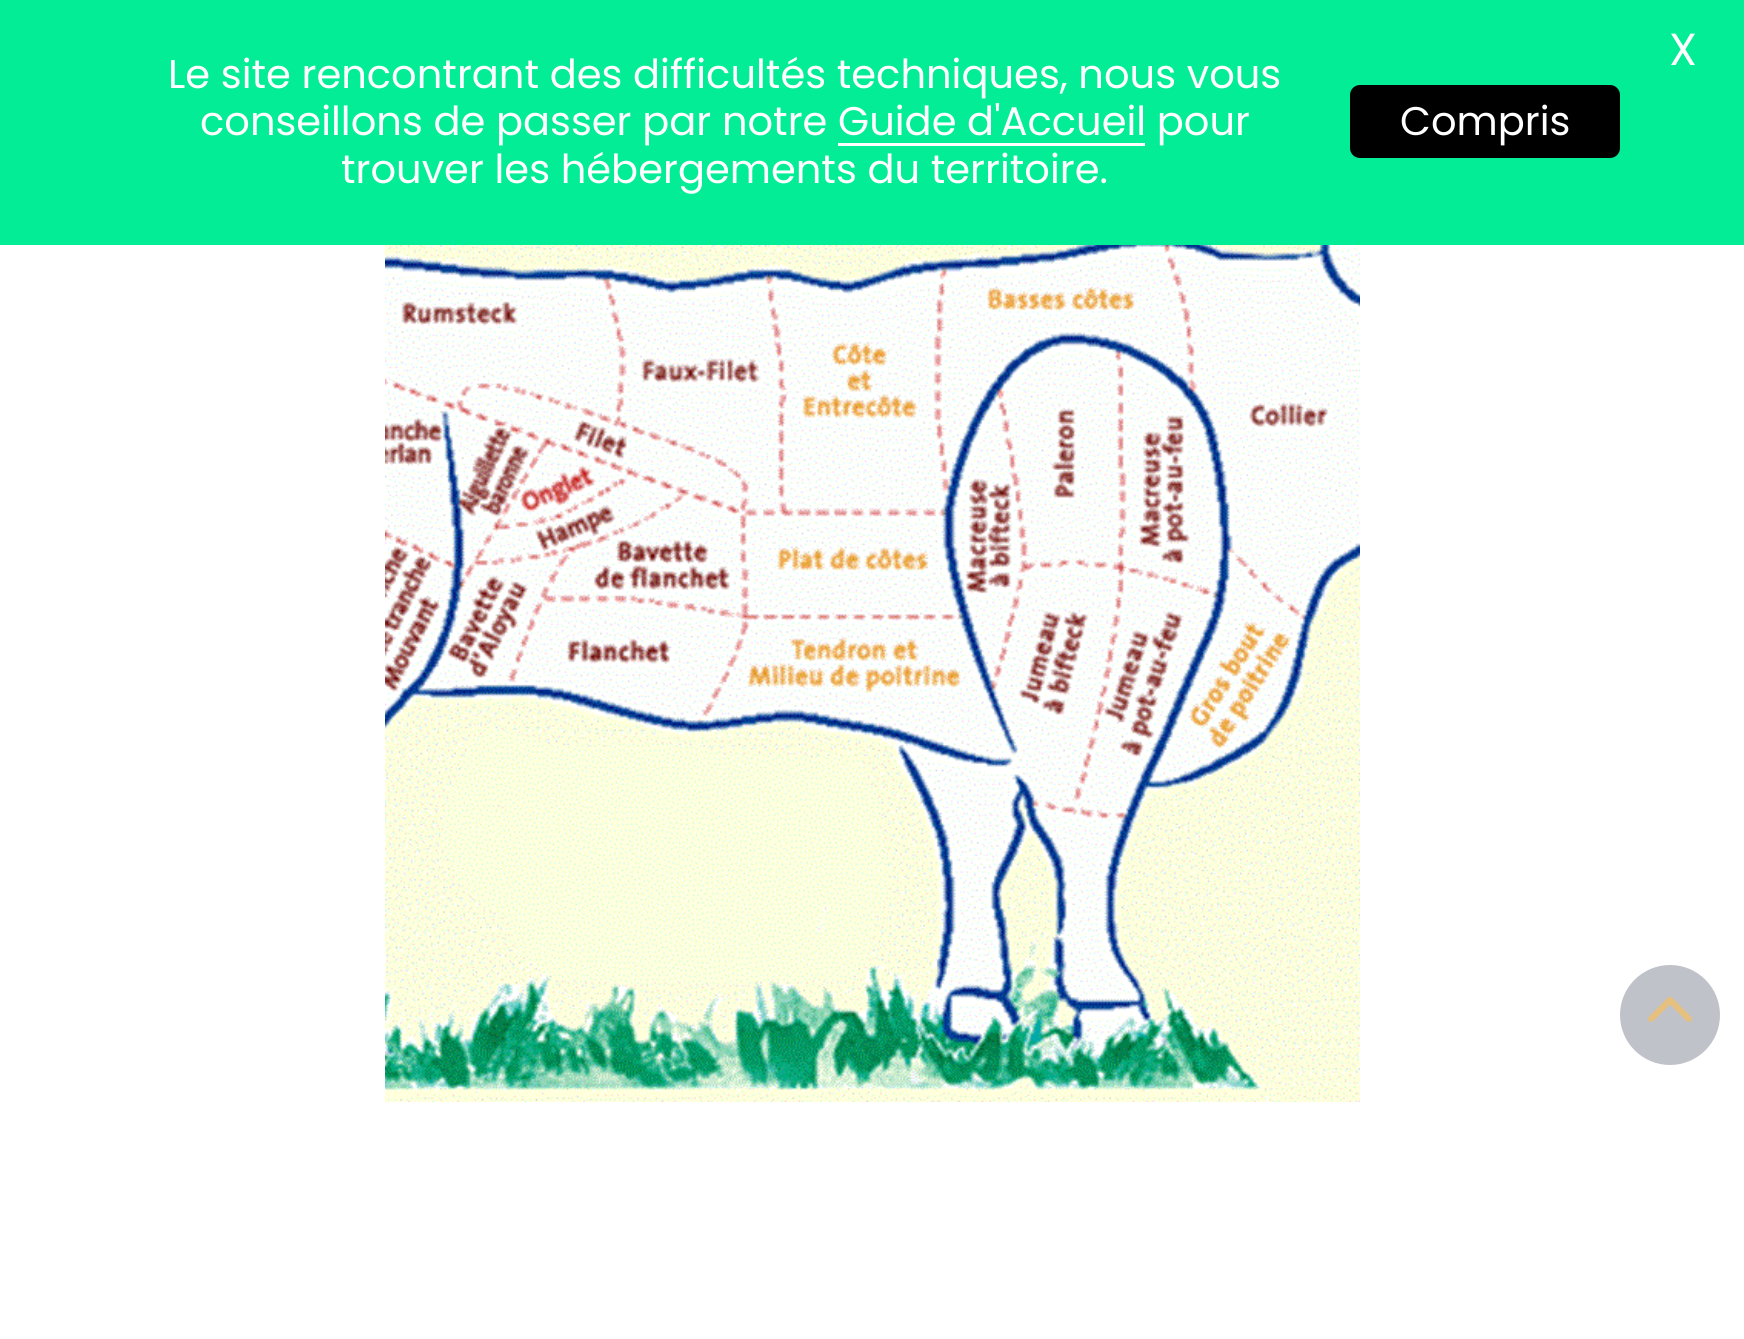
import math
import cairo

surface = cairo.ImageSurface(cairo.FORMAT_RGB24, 1744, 1339)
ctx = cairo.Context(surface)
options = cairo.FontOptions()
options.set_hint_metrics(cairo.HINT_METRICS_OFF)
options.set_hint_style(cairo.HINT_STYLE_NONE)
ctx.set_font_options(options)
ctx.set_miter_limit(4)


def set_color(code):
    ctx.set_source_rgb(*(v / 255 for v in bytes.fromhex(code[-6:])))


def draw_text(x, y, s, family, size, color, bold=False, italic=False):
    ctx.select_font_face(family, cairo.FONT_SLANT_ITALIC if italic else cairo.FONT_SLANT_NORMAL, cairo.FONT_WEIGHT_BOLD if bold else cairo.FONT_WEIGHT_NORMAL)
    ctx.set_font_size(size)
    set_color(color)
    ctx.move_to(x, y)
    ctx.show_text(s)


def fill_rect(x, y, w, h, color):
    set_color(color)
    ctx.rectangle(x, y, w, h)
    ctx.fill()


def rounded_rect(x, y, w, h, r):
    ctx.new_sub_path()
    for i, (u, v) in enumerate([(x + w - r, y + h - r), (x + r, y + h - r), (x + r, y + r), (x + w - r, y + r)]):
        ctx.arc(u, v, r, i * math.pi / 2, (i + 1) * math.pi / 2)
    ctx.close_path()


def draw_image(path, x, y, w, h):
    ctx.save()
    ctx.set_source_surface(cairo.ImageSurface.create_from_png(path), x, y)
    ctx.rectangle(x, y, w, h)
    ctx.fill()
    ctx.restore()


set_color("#ffffff")
ctx.paint()
fill_rect(0, 0, 1744, 245, "#03ed96")
draw_text(1669, 65, "X", "Poppins", 45, "#ffffff")
draw_text(168, 88, "Le site rencontrant des difficultés techniques, nous vous", "Poppins", 40, "#ffffff")
draw_text(200, 135, "conseillons de passer par notre Guide d'Accueil pour", "Poppins", 40, "#ffffff")
fill_rect(838, 143, 307, 3, "#ffffff")
draw_text(341, 183, "trouver les hébergements du territoire.", "Poppins", 40, "#ffffff")
set_color("#000000")
rounded_rect(1350, 85, 270, 73, 10)
ctx.fill()
draw_text(1400, 135, "Compris", "Poppins", 40, "#ffffff")
draw_image("assets/img1.png", 385, 245, 975, 857)
set_color("#c0c2c9")
ctx.arc(1670, 1015, 50, 0, 2 * math.pi)
ctx.fill()
draw_image("assets/img2.png", 1648, 997, 44, 25)
surface.write_to_png("output.png")
